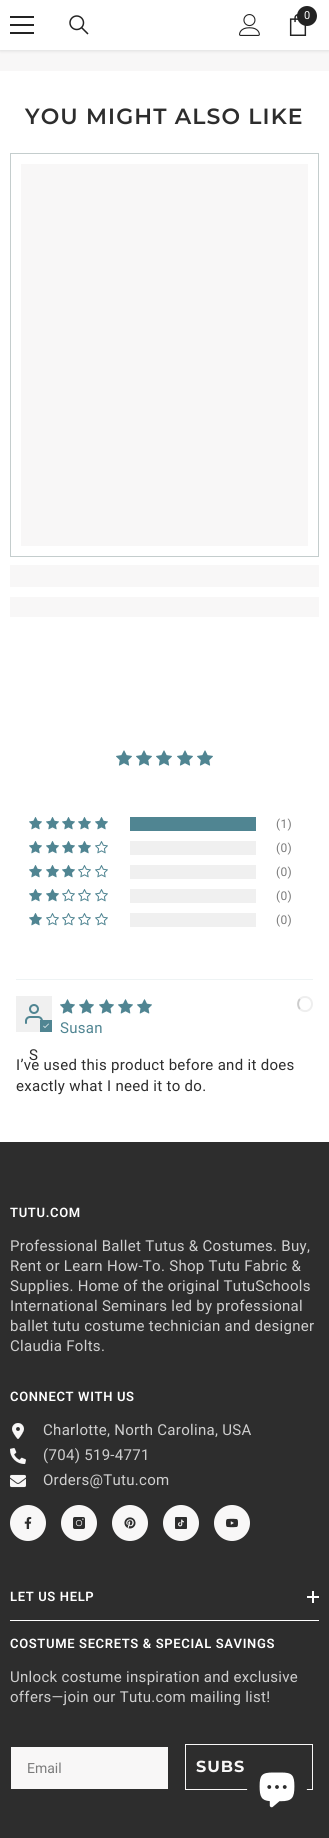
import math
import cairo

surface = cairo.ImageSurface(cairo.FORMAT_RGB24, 329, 1838)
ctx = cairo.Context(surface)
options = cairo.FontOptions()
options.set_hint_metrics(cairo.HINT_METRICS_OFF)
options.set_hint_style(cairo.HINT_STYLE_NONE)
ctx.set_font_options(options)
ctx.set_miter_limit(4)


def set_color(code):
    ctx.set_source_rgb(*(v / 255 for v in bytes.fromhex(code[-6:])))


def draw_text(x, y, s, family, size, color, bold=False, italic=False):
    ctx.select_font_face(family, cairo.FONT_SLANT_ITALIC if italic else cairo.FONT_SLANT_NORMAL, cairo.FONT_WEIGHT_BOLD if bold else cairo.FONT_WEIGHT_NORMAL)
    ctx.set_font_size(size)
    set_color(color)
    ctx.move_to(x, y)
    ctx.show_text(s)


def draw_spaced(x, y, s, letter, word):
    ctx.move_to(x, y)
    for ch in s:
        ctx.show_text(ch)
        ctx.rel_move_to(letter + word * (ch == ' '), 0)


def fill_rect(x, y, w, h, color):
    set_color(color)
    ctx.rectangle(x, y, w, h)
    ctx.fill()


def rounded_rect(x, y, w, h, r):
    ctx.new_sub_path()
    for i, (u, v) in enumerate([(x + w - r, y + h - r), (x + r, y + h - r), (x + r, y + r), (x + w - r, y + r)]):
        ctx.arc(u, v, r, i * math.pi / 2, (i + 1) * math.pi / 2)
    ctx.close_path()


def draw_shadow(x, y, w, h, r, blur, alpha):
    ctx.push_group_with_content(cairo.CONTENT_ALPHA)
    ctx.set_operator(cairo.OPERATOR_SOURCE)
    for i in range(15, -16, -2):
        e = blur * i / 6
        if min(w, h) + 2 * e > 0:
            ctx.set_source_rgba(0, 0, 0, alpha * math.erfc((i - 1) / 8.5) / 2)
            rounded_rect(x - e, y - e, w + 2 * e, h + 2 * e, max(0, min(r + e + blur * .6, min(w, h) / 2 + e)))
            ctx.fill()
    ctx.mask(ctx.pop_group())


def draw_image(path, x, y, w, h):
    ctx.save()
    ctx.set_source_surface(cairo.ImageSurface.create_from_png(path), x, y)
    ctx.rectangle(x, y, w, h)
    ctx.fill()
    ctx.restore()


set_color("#ffffff")
ctx.paint()
fill_rect(0, 50, 329, 21, "#f8f7f7")
set_color("#000000")
draw_shadow(0, 1, 329, 50, 0, 1.5, 0.1)
fill_rect(0, 0, 329, 50, "#ffffff")
fill_rect(10, 24, 24, 2, "#232323")
fill_rect(10, 16, 24, 2, "#232323")
fill_rect(10, 32, 24, 2, "#232323")
draw_image("assets/img1.png", 69, 15, 20, 20)
draw_image("assets/img2.png", 239, 14, 21, 22)
draw_image("assets/img3.png", 289, 14, 18, 22)
ctx.arc(307, 16, 10, 0, 2 * math.pi)
ctx.fill()
draw_text(304, 19, "0", "Roboto", 11, "#ffffff")
ctx.select_font_face("Montserrat SemiBold")
ctx.set_font_size(22)
set_color("#2d2d2d")
draw_spaced(25, 124, "YOU MIGHT ALSO LIKE", 1.1, 0)
ctx.rectangle(10.5, 153.5, 308, 403)
set_color("#c4cdcd")
ctx.set_line_width(1)
ctx.stroke()
fill_rect(21, 164, 287, 382, "#f8f7f7")
gradient = cairo.LinearGradient(-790, 576, 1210, 576)
gradient.add_color_stop_rgba(0.04, 0.973, 0.969, 0.969, 1)
gradient.add_color_stop_rgba(0.25, 0.945, 0.949, 0.953, 1)
gradient.add_color_stop_rgba(0.36, 0.973, 0.969, 0.969, 1)
ctx.set_source(gradient)
ctx.rectangle(10, 565, 309, 22)
ctx.fill()
gradient = cairo.LinearGradient(-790, 607, 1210, 607)
gradient.add_color_stop_rgba(0.04, 0.973, 0.969, 0.969, 1)
gradient.add_color_stop_rgba(0.25, 0.945, 0.949, 0.953, 1)
gradient.add_color_stop_rgba(0.36, 0.973, 0.969, 0.969, 1)
ctx.set_source(gradient)
ctx.rectangle(10, 597, 309, 20)
ctx.fill()
draw_image("assets/img4.png", 116, 750, 16, 16)
draw_image("assets/img4.png", 136, 750, 16, 16)
draw_image("assets/img4.png", 156, 750, 16, 16)
draw_image("assets/img4.png", 177, 750, 16, 16)
draw_image("assets/img4.png", 197, 750, 16, 16)
draw_image("assets/img5.png", 29, 817, 13, 13)
draw_image("assets/img5.png", 46, 817, 13, 13)
draw_image("assets/img5.png", 62, 817, 13, 13)
draw_image("assets/img5.png", 78, 817, 13, 13)
draw_image("assets/img5.png", 95, 817, 13, 13)
fill_rect(130, 817, 126, 14, "#508592")
ctx.select_font_face("Roboto")
ctx.set_font_size(12)
set_color("#7b7b7b")
draw_spaced(276, 828, "(1)", 0.3, 0)
draw_image("assets/img5.png", 29, 841, 13, 13)
draw_image("assets/img5.png", 46, 841, 13, 13)
draw_image("assets/img5.png", 62, 841, 13, 13)
draw_image("assets/img5.png", 78, 841, 13, 13)
draw_image("assets/img6.png", 95, 841, 13, 13)
fill_rect(130, 841, 126, 14, "#f0f0f0")
set_color("#7b7b7b")
draw_spaced(276, 852, "(0)", 0.3, 0)
draw_image("assets/img5.png", 29, 865, 13, 13)
draw_image("assets/img5.png", 46, 865, 13, 13)
draw_image("assets/img5.png", 62, 865, 13, 13)
draw_image("assets/img6.png", 78, 865, 13, 13)
draw_image("assets/img6.png", 95, 865, 13, 13)
fill_rect(130, 865, 126, 14, "#f0f0f0")
set_color("#7b7b7b")
draw_spaced(276, 876, "(0)", 0.3, 0)
draw_image("assets/img5.png", 29, 889, 13, 13)
draw_image("assets/img5.png", 46, 889, 13, 13)
draw_image("assets/img6.png", 62, 889, 13, 13)
draw_image("assets/img6.png", 78, 889, 13, 13)
draw_image("assets/img6.png", 95, 889, 13, 13)
fill_rect(130, 889, 126, 14, "#f0f0f0")
set_color("#7b7b7b")
draw_spaced(276, 900, "(0)", 0.3, 0)
draw_image("assets/img5.png", 29, 913, 13, 13)
draw_image("assets/img6.png", 46, 913, 13, 13)
draw_image("assets/img6.png", 62, 913, 13, 13)
draw_image("assets/img6.png", 78, 913, 13, 13)
draw_image("assets/img6.png", 95, 913, 13, 13)
fill_rect(130, 913, 126, 14, "#f0f0f0")
set_color("#7b7b7b")
draw_spaced(276, 924, "(0)", 0.3, 0)
fill_rect(16, 979, 297, 1, "#eef3f4")
draw_image("assets/img7.png", 60, 999, 15, 15)
draw_image("assets/img7.png", 79, 999, 15, 15)
draw_image("assets/img7.png", 99, 999, 15, 15)
draw_image("assets/img7.png", 118, 999, 15, 15)
draw_image("assets/img7.png", 137, 999, 15, 15)
ctx.new_path()
ctx.move_to(300, 999)
ctx.curve_to(301.5, 997.5, 303, 997, 305, 997)
ctx.curve_to(313.5, 997, 314.5, 1009, 306.5, 1011)
ctx.curve_to(304, 1011.5, 301.5, 1010.5, 300, 1009)
set_color("#eeeeee")
ctx.set_line_width(2)
ctx.stroke()
ctx.new_path()
ctx.move_to(300, 1009)
ctx.curve_to(297.5, 1006.5, 297.5, 1001.5, 300, 999)
set_color("#cccccc")
ctx.stroke()
ctx.set_font_size(15)
set_color("#508592")
draw_spaced(60, 1033, "Susan", 0.3, 0)
fill_rect(16, 996, 36, 36, "#f0f0f0")
draw_image("assets/img8.png", 25, 1004, 18, 20)
fill_rect(40, 1020, 12, 12, "#508592")
draw_image("assets/img9.png", 43, 1023, 6, 5)
set_color("#2d2d2d")
draw_spaced(29, 1060, "S", 0.3, 0)
draw_spaced(16, 1070, "I’ve used this product before and it does", 0.3, 0)
draw_spaced(16, 1091, "exactly what I need it to do.", 0.3, 0)
fill_rect(0, 1142, 329, 696, "#2d2d2d")
ctx.select_font_face("Roboto SemiBold")
ctx.set_font_size(13)
set_color("#ffffff")
draw_spaced(10, 1217, "TUTU.COM", 0.65, 0)
ctx.select_font_face("Roboto")
ctx.set_font_size(15)
set_color("#cfcfcf")
draw_spaced(10, 1251, "Professional Ballet Tutus & Costumes. Buy,", 0.3, 0)
draw_spaced(10, 1271, "Rent or Learn How-To. Shop Tutu Fabric &", 0.3, 0)
draw_spaced(10, 1291, "Supplies. Home of the original TutuSchools", 0.3, 0)
draw_spaced(10, 1311, "International Seminars led by professional", 0.3, 0)
draw_spaced(10, 1331, "ballet tutu costume technician and designer", 0.3, 0)
draw_spaced(10, 1351, "Claudia Folts.", 0.3, 0)
ctx.select_font_face("Roboto SemiBold")
ctx.set_font_size(13)
set_color("#ffffff")
draw_spaced(10, 1401, "CONNECT WITH US", 0.65, 0)
draw_image("assets/img10.png", 12, 1423, 12, 16)
ctx.select_font_face("Roboto")
ctx.set_font_size(15)
set_color("#cfcfcf")
draw_spaced(43, 1435, "Charlotte, North Carolina, USA", 0.3, 0)
draw_image("assets/img11.png", 10, 1448, 16, 16)
draw_spaced(43, 1460, "(704) 519-4771", 0.3, 0)
draw_image("assets/img12.png", 10, 1474, 16, 14)
draw_spaced(43, 1485, "Orders@Tutu.com", 0.3, 0)
set_color("#f8f7f7")
ctx.new_path()
ctx.arc(28, 1523, 18, 0, 2 * math.pi)
ctx.fill()
draw_image("assets/img13.png", 24, 1517, 8, 12)
ctx.arc(79, 1523, 18, 0, 2 * math.pi)
ctx.fill()
draw_image("assets/img14.png", 73, 1517, 12, 12)
ctx.arc(130, 1523, 18, 0, 2 * math.pi)
ctx.fill()
draw_image("assets/img15.png", 124, 1517, 12, 12)
ctx.arc(181, 1523, 18, 0, 2 * math.pi)
ctx.fill()
draw_image("assets/img16.png", 175, 1517, 12, 12)
ctx.arc(232, 1523, 18, 0, 2 * math.pi)
ctx.fill()
draw_image("assets/img17.png", 226, 1518, 12, 10)
fill_rect(10, 1620, 309, 1, "#ffffff")
ctx.select_font_face("Roboto SemiBold")
ctx.set_font_size(13)
draw_spaced(10, 1601, "LET US HELP", 0.65, 0)
fill_rect(312, 1591, 2, 12, "#ffffff")
fill_rect(307, 1596, 12, 2, "#ffffff")
draw_spaced(10, 1648, "COSTUME SECRETS & SPECIAL SAVINGS", 0.65, 0)
ctx.select_font_face("Roboto")
ctx.set_font_size(15)
set_color("#cfcfcf")
draw_spaced(10, 1682, "Unlock costume inspiration and exclusive", 0.3, 0)
draw_spaced(10, 1702, "offers—join our Tutu.com mailing list!", 0.3, 0)
fill_rect(11, 1747, 157, 42, "#f8f7f7")
draw_text(27, 1773, "Email", "Roboto", 14, "#7b7b7b")
ctx.rectangle(185.5, 1744.5, 127, 45)
set_color("#f8f7f7")
ctx.set_line_width(1)
ctx.stroke()
ctx.select_font_face("Montserrat", cairo.FONT_SLANT_NORMAL, cairo.FONT_WEIGHT_BOLD)
ctx.set_font_size(16)
draw_spaced(196, 1772, "SUBS", 1, 0)
set_color("#2d2d2d")
ctx.new_path()
ctx.arc(277, 1787, 30, 0, 2 * math.pi)
ctx.fill()
draw_image("assets/img18.png", 259, 1772, 36, 36)
surface.write_to_png("output.png")
